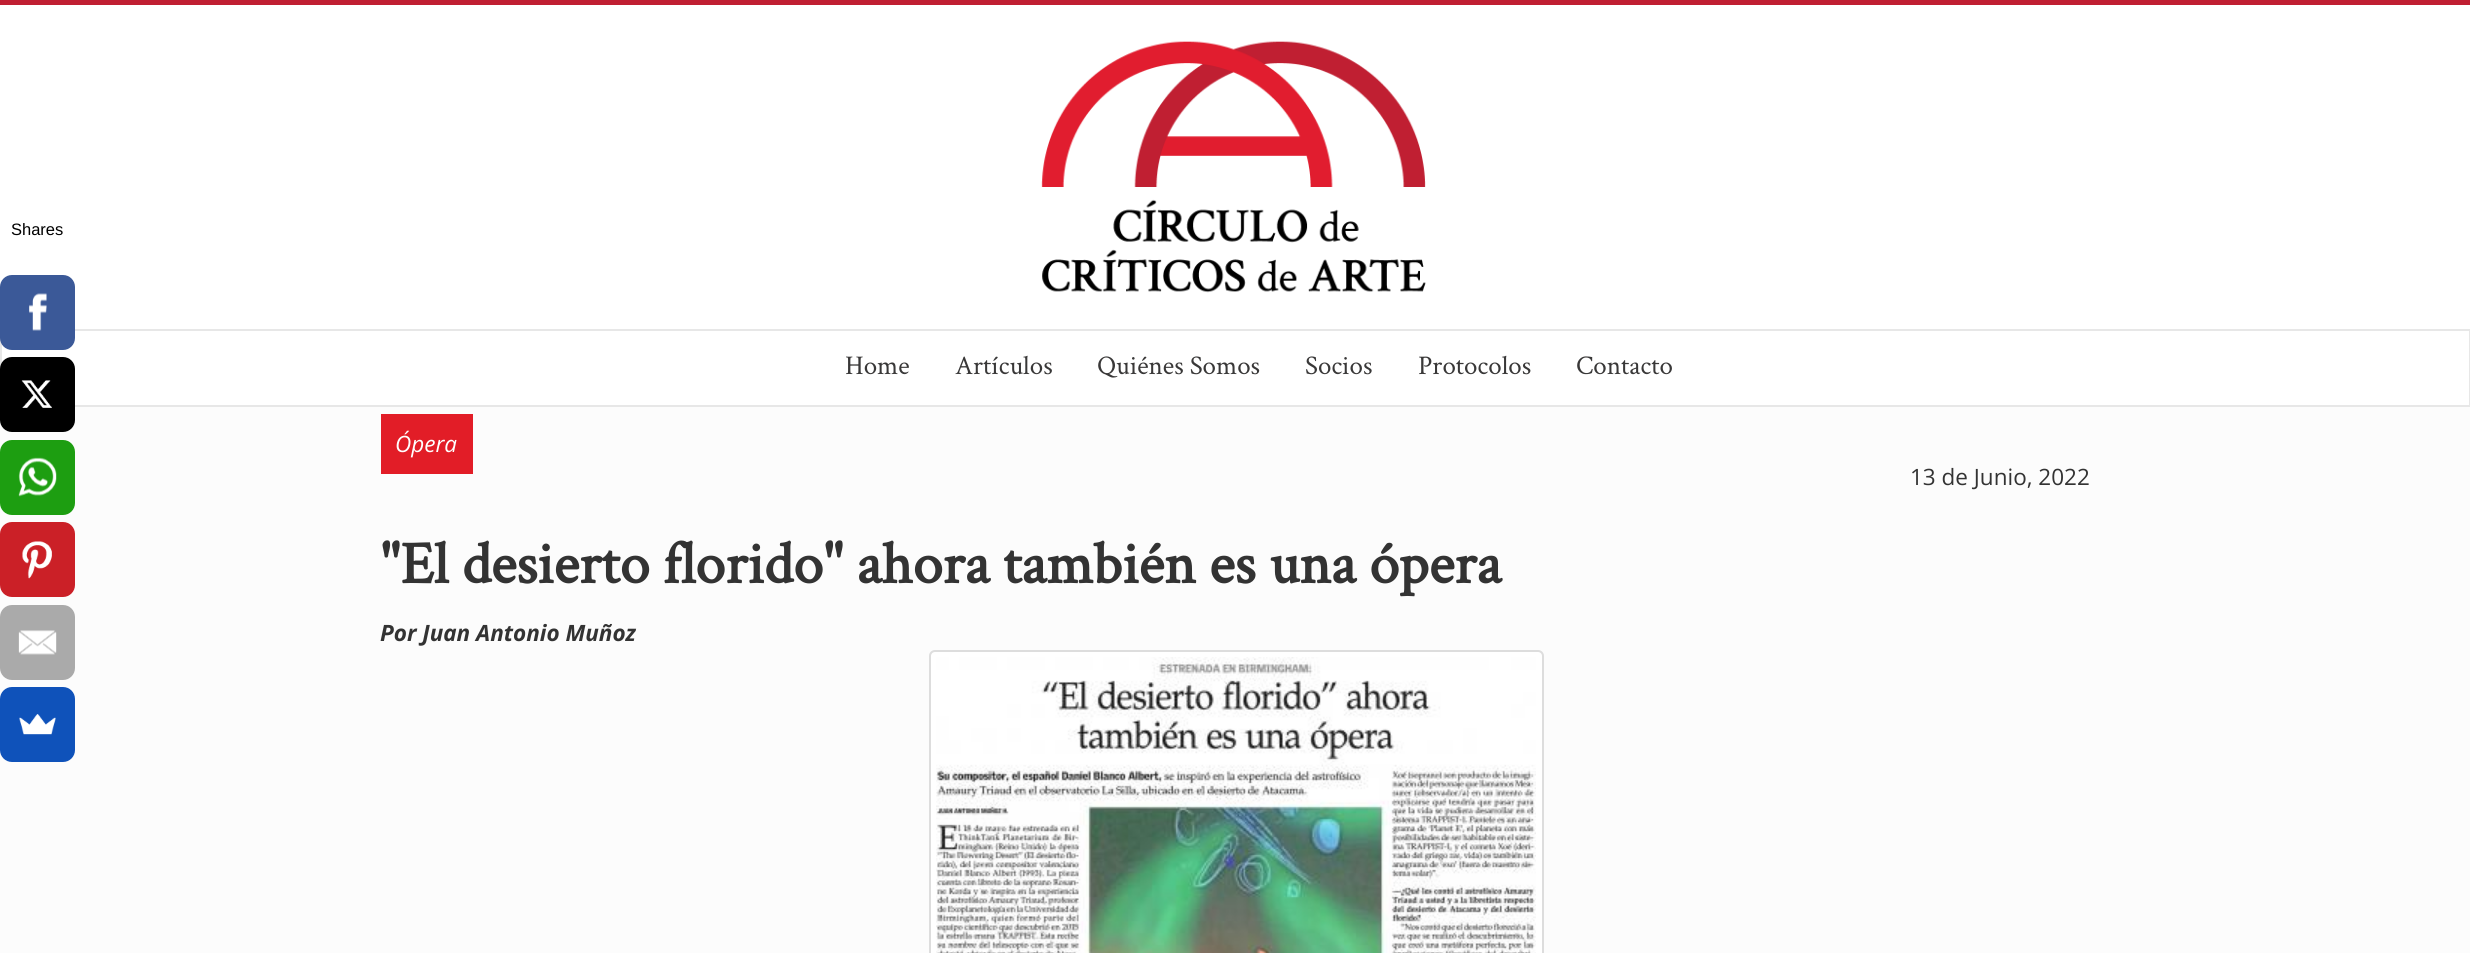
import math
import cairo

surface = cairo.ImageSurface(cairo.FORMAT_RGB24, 2470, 953)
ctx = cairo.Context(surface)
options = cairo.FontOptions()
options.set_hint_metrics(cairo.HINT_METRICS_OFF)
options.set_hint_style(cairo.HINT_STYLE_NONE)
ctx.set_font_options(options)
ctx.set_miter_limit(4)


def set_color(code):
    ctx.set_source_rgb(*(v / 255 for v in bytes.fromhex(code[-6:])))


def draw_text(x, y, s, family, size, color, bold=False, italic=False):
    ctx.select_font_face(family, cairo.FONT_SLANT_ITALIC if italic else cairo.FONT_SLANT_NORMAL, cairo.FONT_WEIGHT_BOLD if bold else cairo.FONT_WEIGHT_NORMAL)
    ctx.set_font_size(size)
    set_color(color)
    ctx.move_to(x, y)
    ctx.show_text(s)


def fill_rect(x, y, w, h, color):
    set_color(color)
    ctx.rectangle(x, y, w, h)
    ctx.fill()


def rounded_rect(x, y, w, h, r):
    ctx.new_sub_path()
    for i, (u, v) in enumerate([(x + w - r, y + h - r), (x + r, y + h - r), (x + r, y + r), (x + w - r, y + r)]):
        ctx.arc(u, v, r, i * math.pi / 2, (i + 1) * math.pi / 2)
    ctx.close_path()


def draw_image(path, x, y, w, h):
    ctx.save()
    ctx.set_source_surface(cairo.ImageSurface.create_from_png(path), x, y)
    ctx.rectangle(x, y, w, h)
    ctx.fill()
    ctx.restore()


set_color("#ffffff")
ctx.paint()
fill_rect(0, 0, 2470, 5, "#c01f32")
draw_image("assets/img1.png", 1041, 41, 385, 252)
draw_text(11, 235, "Shares", "Liberation Sans", 16.5, "#000000")
ctx.rectangle(1, 330, 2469, 76)
set_color("#e7e7e7")
ctx.stroke()
set_color("#3b5998")
rounded_rect(0, 275, 75, 75, 12)
ctx.fill()
draw_image("assets/img2.png", 29, 293, 18, 38)
fill_rect(0, 407, 2470, 546, "#fcfcfc")
set_color("#000000")
rounded_rect(0, 357, 75, 75, 12)
ctx.fill()
draw_image("assets/img3.png", 21, 380, 31, 28)
set_color("#1d9e11")
rounded_rect(0, 440, 75, 75, 12)
ctx.fill()
draw_image("assets/img4.png", 18, 457, 39, 40)
set_color("#cb2027")
rounded_rect(0, 522, 75, 75, 12)
ctx.fill()
draw_image("assets/img5.png", 22, 541, 30, 38)
set_color("#aaaaaa")
rounded_rect(0, 605, 75, 75, 12)
ctx.fill()
draw_image("assets/img6.png", 18, 630, 39, 25)
set_color("#0f52ba")
rounded_rect(0, 687, 75, 75, 12)
ctx.fill()
draw_image("assets/img7.png", 19, 714, 37, 21)
draw_text(845, 374, "Home", "Crimson Text", 27, "#393838")
draw_text(955, 374, "Artículos", "Crimson Text", 27, "#393838")
draw_text(1097, 374, "Quiénes Somos", "Crimson Text", 27, "#393838")
draw_text(1305, 374, "Socios", "Crimson Text", 27, "#393838")
draw_text(1418, 374, "Protocolos", "Crimson Text", 27, "#393838")
draw_text(1576, 374, "Contacto", "Crimson Text", 27, "#393838")
fill_rect(381, 414, 92, 60, "#e21d27")
draw_text(395, 452, "Ópera", "Open Sans", 22.5, "#ffffff", italic=True)
draw_text(1910, 485, "13 de Junio, 2022", "Open Sans", 22.5, "#333333")
draw_text(380, 583, "\"El desierto florido\" ahora también es una ópera", "Crimson Text", 60, "#333333", bold=True)
draw_text(380, 641, "Por Juan Antonio Muñoz", "Open Sans", 22.5, "#333333", bold=True, italic=True)
set_color("#ffffff")
rounded_rect(930, 651, 613, 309, 5)
ctx.fill_preserve()
set_color("#dddddd")
ctx.stroke()
draw_image("assets/img8.png", 936, 657, 600, 296)
surface.write_to_png("output.png")
